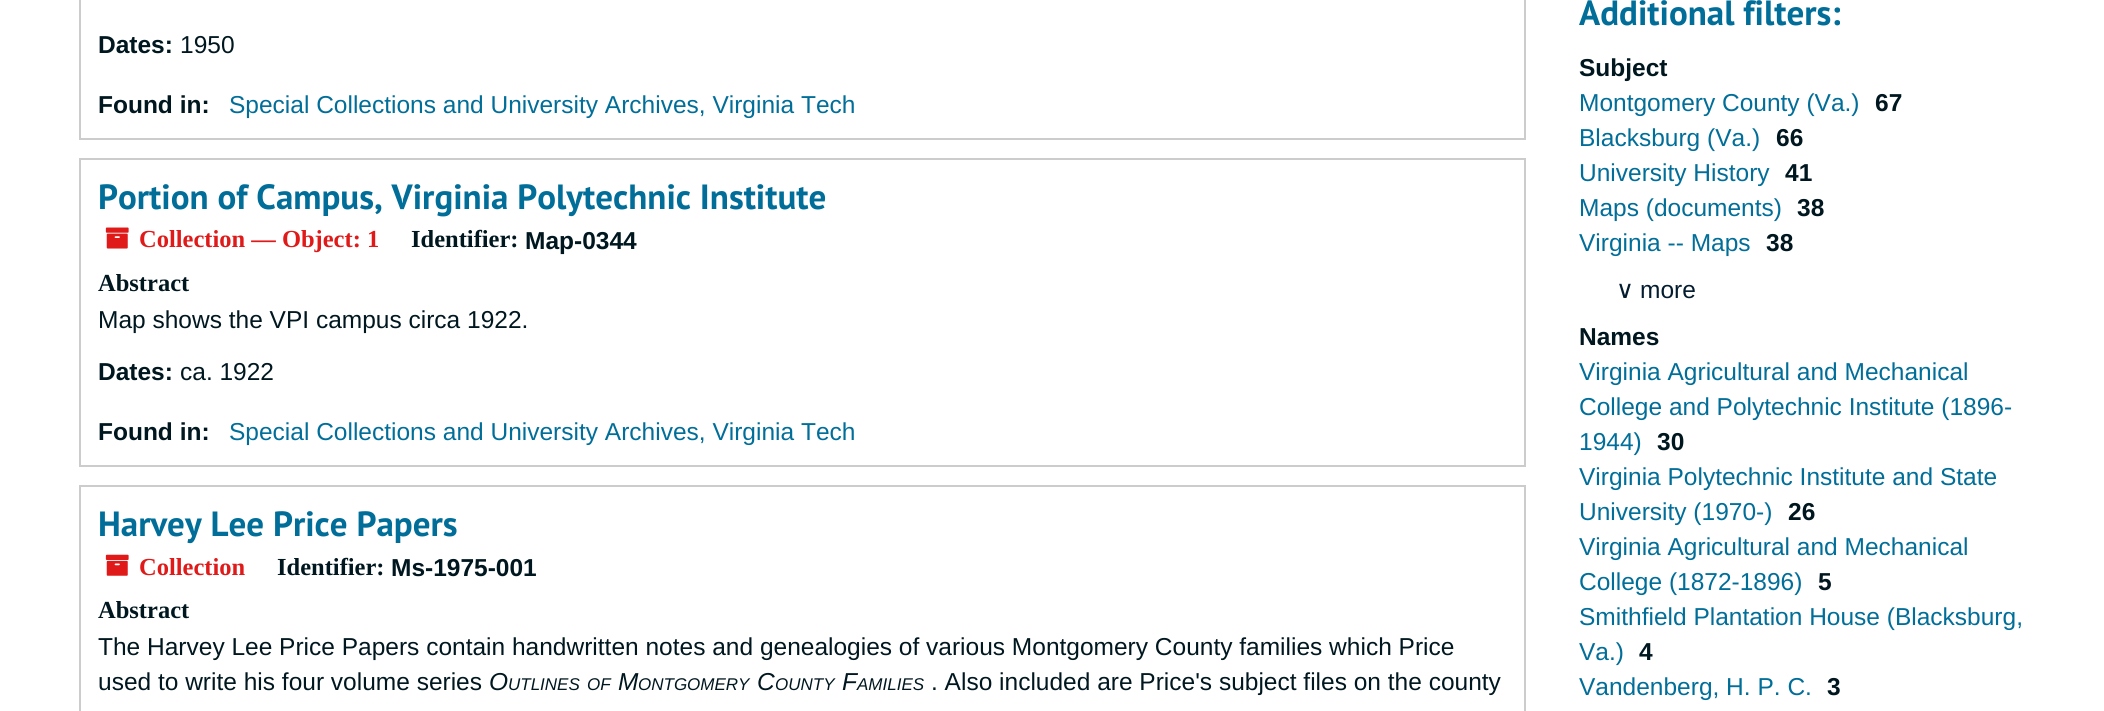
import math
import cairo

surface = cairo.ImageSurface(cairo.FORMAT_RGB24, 2104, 711)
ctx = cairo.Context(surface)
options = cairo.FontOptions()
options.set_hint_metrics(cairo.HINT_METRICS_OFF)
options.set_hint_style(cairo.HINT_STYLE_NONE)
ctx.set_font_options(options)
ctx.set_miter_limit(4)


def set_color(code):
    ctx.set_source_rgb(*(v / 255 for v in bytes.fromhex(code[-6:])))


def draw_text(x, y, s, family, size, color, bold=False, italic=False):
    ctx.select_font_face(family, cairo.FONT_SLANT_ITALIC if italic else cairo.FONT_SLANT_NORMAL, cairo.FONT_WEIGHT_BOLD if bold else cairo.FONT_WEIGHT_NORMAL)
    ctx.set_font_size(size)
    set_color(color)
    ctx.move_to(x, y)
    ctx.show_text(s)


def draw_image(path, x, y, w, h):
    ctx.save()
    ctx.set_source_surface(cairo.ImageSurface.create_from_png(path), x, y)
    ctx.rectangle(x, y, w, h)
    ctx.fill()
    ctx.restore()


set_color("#ffffff")
ctx.paint()
ctx.rectangle(80, -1, 1445, 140)
set_color("#cccccc")
ctx.stroke()
draw_text(98, 53, "Dates:", "Liberation Sans", 24.5, "#00171f", bold=True)
draw_text(180, 53, "1950", "Liberation Sans", 24.5, "#00171f")
draw_text(98, 113, "Found in:", "Liberation Sans", 24.5, "#00171f", bold=True)
draw_text(229, 113, "Special Collections and University Archives, Virginia Tech", "Liberation Sans", 24.5, "#006e99")
ctx.rectangle(80, 159, 1445, 307)
set_color("#cccccc")
ctx.stroke()
draw_text(98, 209, "Portion of Campus, Virginia Polytechnic Institute", "PT Sans", 35, "#006e99", bold=True)
draw_image("assets/img1.png", 105, 227, 24, 22)
draw_text(139, 247, "Collection — Object: 1", "Liberation Serif", 24.5, "#e01919", bold=True)
draw_text(411, 247, "Identifier:", "Liberation Serif", 24.5, "#00171f", bold=True)
draw_text(525, 249, "Map-0344", "Liberation Sans", 24.5, "#00171f", bold=True)
draw_text(98, 291, "Abstract", "Liberation Serif", 24.5, "#00171f", bold=True)
draw_text(98, 328, "Map shows the VPI campus circa 1922.", "Liberation Sans", 24.5, "#00171f")
draw_text(98, 380, "Dates:", "Liberation Sans", 24.5, "#00171f", bold=True)
draw_text(180, 380, "ca. 1922", "Liberation Sans", 24.5, "#00171f")
draw_text(98, 440, "Found in:", "Liberation Sans", 24.5, "#00171f", bold=True)
draw_text(229, 440, "Special Collections and University Archives, Virginia Tech", "Liberation Sans", 24.5, "#006e99")
ctx.rectangle(80, 486, 1445, 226)
set_color("#cccccc")
ctx.stroke()
draw_text(98, 536, "Harvey Lee Price Papers", "PT Sans", 35, "#006e99", bold=True)
draw_image("assets/img2.png", 105, 554, 24, 22)
draw_text(139, 575, "Collection", "Liberation Serif", 24.5, "#e01919", bold=True)
draw_text(277, 575, "Identifier:", "Liberation Serif", 24.5, "#00171f", bold=True)
draw_text(391, 576, "Ms-1975-001", "Liberation Sans", 24.5, "#00171f", bold=True)
draw_text(98, 618, "Abstract", "Liberation Serif", 24.5, "#00171f", bold=True)
draw_text(98, 655, "The Harvey Lee Price Papers contain handwritten notes and genealogies of various Montgomery County families which Price", "Liberation Sans", 24.5, "#00171f")
draw_text(98, 690, "used to write his four volume series", "Liberation Sans", 24.5, "#00171f")
draw_text(489, 690, "O", "Liberation Sans", 24.5, "#00171f", italic=True)
draw_text(508, 690, "UTLINES", "Liberation Sans", 17, "#00171f", italic=True)
draw_text(587, 690, "OF", "Liberation Sans", 17, "#00171f", italic=True)
draw_text(618, 690, "M", "Liberation Sans", 24.5, "#00171f", italic=True)
draw_text(638, 690, "ONTGOMERY", "Liberation Sans", 17, "#00171f", italic=True)
draw_text(757, 690, "C", "Liberation Sans", 24.5, "#00171f", italic=True)
draw_text(775, 690, "OUNTY", "Liberation Sans", 17, "#00171f", italic=True)
draw_text(842, 690, "F", "Liberation Sans", 24.5, "#00171f", italic=True)
draw_text(857, 690, "AMILIES", "Liberation Sans", 17, "#00171f", italic=True)
draw_text(931, 690, ". Also included are Price's subject files on the county", "Liberation Sans", 24.5, "#00171f")
draw_text(1579, 25, "Additional filters:", "PT Sans", 35, "#006e99", bold=True)
draw_text(1579, 76, "Subject", "Liberation Sans", 24.5, "#00171f", bold=True)
draw_text(1579, 111, "Montgomery County (Va.)", "Liberation Sans", 24.5, "#006e99")
draw_text(1875, 111, "67", "Liberation Sans", 24.5, "#00171f", bold=True)
draw_text(1579, 146, "Blacksburg (Va.)", "Liberation Sans", 24.5, "#006e99")
draw_text(1776, 146, "66", "Liberation Sans", 24.5, "#00171f", bold=True)
draw_text(1579, 181, "University History", "Liberation Sans", 24.5, "#006e99")
draw_text(1785, 181, "41", "Liberation Sans", 24.5, "#00171f", bold=True)
draw_text(1579, 216, "Maps (documents)", "Liberation Sans", 24.5, "#006e99")
draw_text(1797, 216, "38", "Liberation Sans", 24.5, "#00171f", bold=True)
draw_text(1579, 251, "Virginia -- Maps", "Liberation Sans", 24.5, "#006e99")
draw_text(1766, 251, "38", "Liberation Sans", 24.5, "#00171f", bold=True)
draw_text(1616, 298, "∨", "DejaVu Sans", 24.5, "#041c2f")
draw_text(1640, 298, "more", "Liberation Sans", 24.5, "#041c2f")
draw_text(1579, 345, "Names", "Liberation Sans", 24.5, "#00171f", bold=True)
draw_text(1579, 380, "Virginia Agricultural and Mechanical", "Liberation Sans", 24.5, "#006e99")
draw_text(1579, 415, "College and Polytechnic Institute (1896-", "Liberation Sans", 24.5, "#006e99")
draw_text(1579, 450, "1944)", "Liberation Sans", 24.5, "#006e99")
draw_text(1657, 450, "30", "Liberation Sans", 24.5, "#00171f", bold=True)
draw_text(1579, 485, "Virginia Polytechnic Institute and State", "Liberation Sans", 24.5, "#006e99")
draw_text(1579, 520, "University (1970-)", "Liberation Sans", 24.5, "#006e99")
draw_text(1788, 520, "26", "Liberation Sans", 24.5, "#00171f", bold=True)
draw_text(1579, 555, "Virginia Agricultural and Mechanical", "Liberation Sans", 24.5, "#006e99")
draw_text(1579, 590, "College (1872-1896)", "Liberation Sans", 24.5, "#006e99")
draw_text(1818, 590, "5", "Liberation Sans", 24.5, "#00171f", bold=True)
draw_text(1579, 625, "Smithfield Plantation House (Blacksburg,", "Liberation Sans", 24.5, "#006e99")
draw_text(1579, 660, "Va.)", "Liberation Sans", 24.5, "#006e99")
draw_text(1639, 660, "4", "Liberation Sans", 24.5, "#00171f", bold=True)
draw_text(1579, 695, "Vandenberg, H. P. C.", "Liberation Sans", 24.5, "#006e99")
draw_text(1827, 695, "3", "Liberation Sans", 24.5, "#00171f", bold=True)
surface.write_to_png("output.png")
